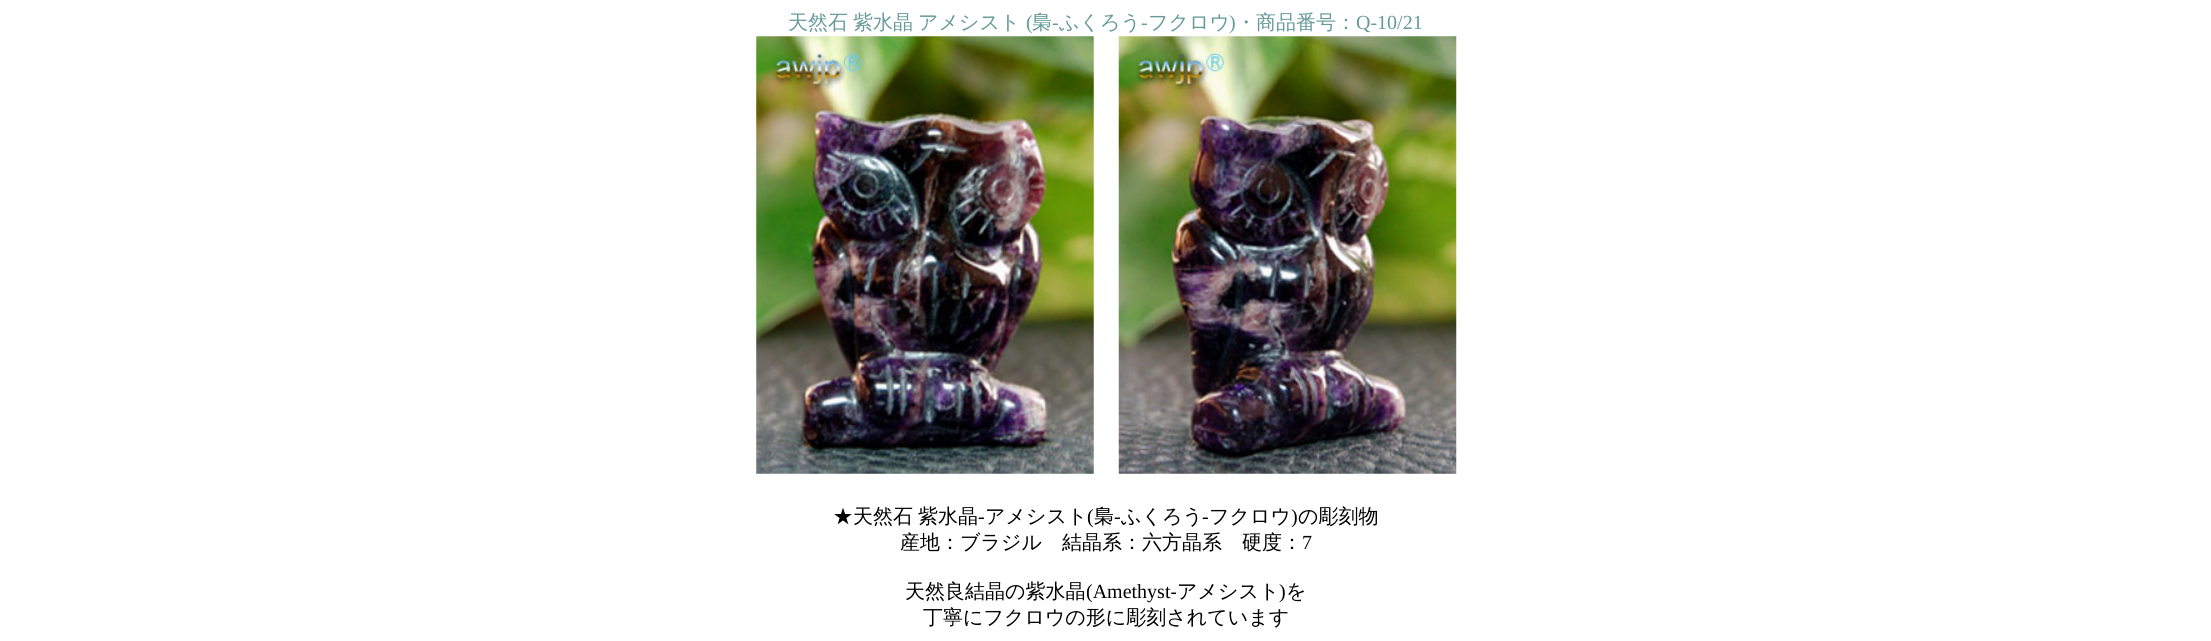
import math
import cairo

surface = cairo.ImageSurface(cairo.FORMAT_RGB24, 2211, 641)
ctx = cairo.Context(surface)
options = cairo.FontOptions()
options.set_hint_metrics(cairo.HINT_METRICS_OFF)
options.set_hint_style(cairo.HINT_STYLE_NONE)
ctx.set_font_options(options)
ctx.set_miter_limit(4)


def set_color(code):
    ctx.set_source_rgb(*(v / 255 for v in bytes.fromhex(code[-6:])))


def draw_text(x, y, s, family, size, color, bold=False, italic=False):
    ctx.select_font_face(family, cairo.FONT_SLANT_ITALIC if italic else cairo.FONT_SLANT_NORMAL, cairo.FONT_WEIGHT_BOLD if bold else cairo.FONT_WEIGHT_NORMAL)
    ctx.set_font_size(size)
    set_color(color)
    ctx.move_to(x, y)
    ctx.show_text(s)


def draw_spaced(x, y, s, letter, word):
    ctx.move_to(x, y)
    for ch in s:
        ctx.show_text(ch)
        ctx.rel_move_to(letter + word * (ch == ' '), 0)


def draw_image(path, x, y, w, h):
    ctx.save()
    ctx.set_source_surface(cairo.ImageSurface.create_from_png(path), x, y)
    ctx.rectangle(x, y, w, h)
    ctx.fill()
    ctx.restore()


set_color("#ffffff")
ctx.paint()
ctx.select_font_face("WenQuanYi Zen Hei Medium")
ctx.set_font_size(20)
set_color("#669999")
draw_spaced(788, 29, "天然石 紫水晶 アメシスト", 0, -1)
draw_text(1026, 29, "(", "Liberation Serif", 20, "#669999")
draw_text(1032, 29, "梟", "WenQuanYi Zen Hei Medium", 20, "#669999")
draw_text(1052, 29, "-", "Liberation Serif", 20, "#669999")
draw_text(1059, 29, "ふくろう", "WenQuanYi Zen Hei Medium", 20, "#669999")
draw_text(1141, 29, "-", "Liberation Serif", 20, "#669999")
draw_text(1148, 29, "フクロウ", "WenQuanYi Zen Hei Medium", 20, "#669999")
draw_text(1229, 29, ")", "Liberation Serif", 20, "#669999")
draw_text(1236, 29, "・商品番号：", "WenQuanYi Zen Hei Medium", 20, "#669999")
draw_text(1356, 29, "Q-10/21", "Liberation Serif", 20, "#669999")
draw_image("assets/img1.png", 756, 36, 338, 438)
draw_image("assets/img2.png", 1118, 36, 339, 438)
ctx.select_font_face("WenQuanYi Zen Hei Medium")
set_color("#000000")
draw_spaced(833, 523, "★天然石 紫水晶", 0, -1)
draw_text(978, 523, "-", "Liberation Serif", 20, "#000000")
draw_text(985, 523, "アメシスト", "WenQuanYi Zen Hei Medium", 20, "#000000")
draw_text(1087, 523, "(", "Liberation Serif", 20, "#000000")
draw_text(1094, 523, "梟", "WenQuanYi Zen Hei Medium", 20, "#000000")
draw_text(1114, 523, "-", "Liberation Serif", 20, "#000000")
draw_text(1121, 523, "ふくろう", "WenQuanYi Zen Hei Medium", 20, "#000000")
draw_text(1202, 523, "-", "Liberation Serif", 20, "#000000")
draw_text(1209, 523, "フクロウ", "WenQuanYi Zen Hei Medium", 20, "#000000")
draw_text(1291, 523, ")", "Liberation Serif", 20, "#000000")
draw_text(1298, 523, "の彫刻物", "WenQuanYi Zen Hei Medium", 20, "#000000")
draw_text(900, 549, "産地：ブラジル　結晶系：六方晶系　硬度：", "WenQuanYi Zen Hei Medium", 20, "#000000")
draw_text(1302, 549, "7", "Liberation Serif", 20, "#000000")
draw_text(905, 598, "天然良結晶の紫水晶", "WenQuanYi Zen Hei Medium", 20, "#000000")
draw_text(1086, 598, "(Amethyst-", "Liberation Serif", 20, "#000000")
draw_text(1177, 598, "アメシスト", "WenQuanYi Zen Hei Medium", 20, "#000000")
draw_text(1279, 598, ")", "Liberation Serif", 20, "#000000")
draw_text(1286, 598, "を", "WenQuanYi Zen Hei Medium", 20, "#000000")
draw_text(923, 624, "丁寧にフクロウの形に彫刻されています", "WenQuanYi Zen Hei Medium", 20, "#000000")
surface.write_to_png("output.png")
